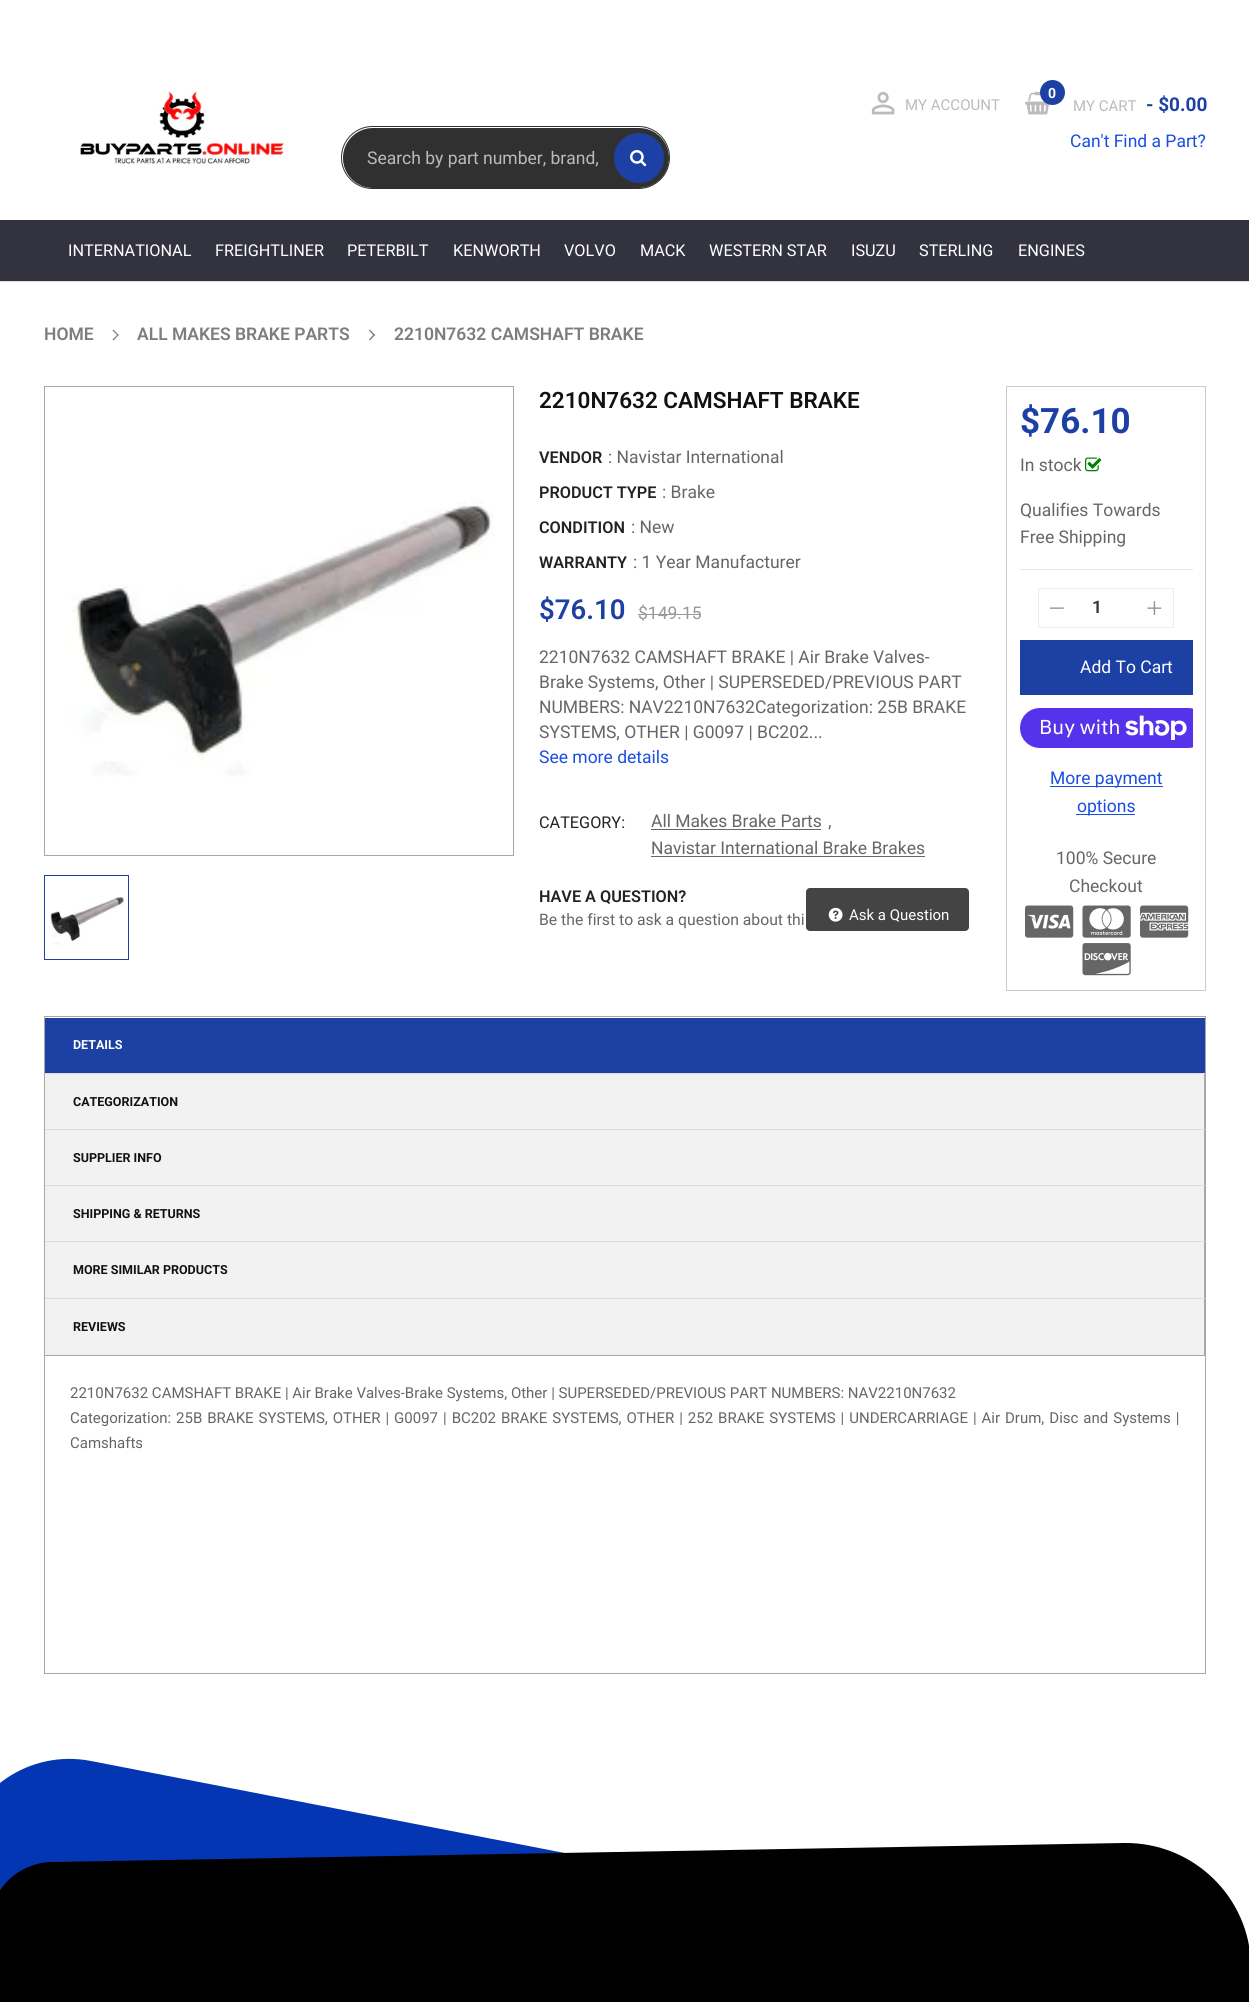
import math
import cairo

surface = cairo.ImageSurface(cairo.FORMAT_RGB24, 1249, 2002)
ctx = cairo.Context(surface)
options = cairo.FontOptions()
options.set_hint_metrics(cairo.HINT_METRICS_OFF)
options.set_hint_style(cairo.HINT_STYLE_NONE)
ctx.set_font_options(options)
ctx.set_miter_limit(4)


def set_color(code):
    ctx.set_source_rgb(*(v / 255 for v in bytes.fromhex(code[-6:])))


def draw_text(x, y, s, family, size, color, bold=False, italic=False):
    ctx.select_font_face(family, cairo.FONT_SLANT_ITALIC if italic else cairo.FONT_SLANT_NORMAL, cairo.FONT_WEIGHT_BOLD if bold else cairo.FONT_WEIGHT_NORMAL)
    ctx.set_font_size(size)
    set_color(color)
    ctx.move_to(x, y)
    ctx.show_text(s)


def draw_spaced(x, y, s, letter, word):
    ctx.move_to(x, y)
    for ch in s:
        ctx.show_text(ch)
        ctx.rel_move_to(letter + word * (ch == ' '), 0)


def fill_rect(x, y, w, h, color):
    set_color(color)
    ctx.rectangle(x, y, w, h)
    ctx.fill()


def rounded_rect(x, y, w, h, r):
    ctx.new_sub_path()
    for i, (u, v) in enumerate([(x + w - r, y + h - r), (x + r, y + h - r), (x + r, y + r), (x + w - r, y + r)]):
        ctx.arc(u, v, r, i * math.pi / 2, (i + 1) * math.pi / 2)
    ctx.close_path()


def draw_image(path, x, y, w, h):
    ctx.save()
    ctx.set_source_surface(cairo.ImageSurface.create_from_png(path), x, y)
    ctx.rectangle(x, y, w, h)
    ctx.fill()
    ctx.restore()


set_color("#ffffff")
ctx.paint()
fill_rect(0, 281, 1249, 1, "#dddddd")
draw_image("assets/img1.png", 80, 91, 206, 74)
draw_image("assets/img2.png", 871, 91, 24, 24)
draw_text(905, 110, "MY ACCOUNT", "Roboto", 15, "#bbbbbb")
draw_image("assets/img3.png", 1025, 91, 26, 24)
set_color("#1d40a4")
ctx.arc(1052.5, 92.5, 12.5, 0, 2 * math.pi)
ctx.fill()
draw_text(1048, 98, "0", "Roboto", 14, "#ffffff", bold=True)
draw_text(1073, 111, "MY CART", "Roboto", 15, "#bbbbbb")
draw_text(1146, 111, "- $0.00", "Roboto", 19, "#1d40a4", bold=True)
draw_text(1070, 147, "Can't Find a Part?", "Roboto", 17.5, "#1a4ee1")
set_color("#303030")
rounded_rect(343, 128, 326, 60, 30)
ctx.fill()
rounded_rect(341.5, 126.5, 328, 62, 31)
ctx.set_line_width(1)
ctx.stroke()
draw_text(367, 164, "Search by part number, brand,", "Roboto", 17.5, "#bbbbbb")
set_color("#1d40a4")
ctx.new_path()
ctx.arc(639, 158, 25, 0, 2 * math.pi)
ctx.fill()
draw_image("assets/img4.png", 630, 150, 17, 17)
fill_rect(0, 221, 1249, 60, "#32333f")
fill_rect(0, 220, 1249, 1, "#303030")
draw_text(68, 256, "INTERNATIONAL", "Roboto", 16.25, "#ffffff")
draw_text(215, 256, "FREIGHTLINER", "Roboto", 16.25, "#ffffff")
draw_text(347, 256, "PETERBILT", "Roboto", 16.25, "#ffffff")
draw_text(453, 256, "KENWORTH", "Roboto", 16.25, "#ffffff")
draw_text(564, 256, "VOLVO", "Roboto", 16.25, "#ffffff")
draw_text(640, 256, "MACK", "Roboto", 16.25, "#ffffff")
draw_text(709, 256, "WESTERN STAR", "Roboto", 16.25, "#ffffff")
draw_text(851, 256, "ISUZU", "Roboto", 16.25, "#ffffff")
draw_text(919, 256, "STERLING", "Roboto", 16.25, "#ffffff")
draw_text(1018, 256, "ENGINES", "Roboto", 16.25, "#ffffff")
draw_text(44, 340, "HOME", "Roboto SemiBold", 17.5, "#7d7d7d")
ctx.new_path()
ctx.move_to(113.5, 329.5)
ctx.line_to(118.5, 335)
ctx.line_to(118, 336)
ctx.line_to(112.5, 330.5)
ctx.close_path()
ctx.fill()
ctx.new_path()
ctx.move_to(118, 334)
ctx.line_to(118.5, 335)
ctx.line_to(113.5, 340.5)
ctx.line_to(112.5, 339.5)
ctx.close_path()
ctx.fill()
draw_text(137, 340, "ALL MAKES BRAKE PARTS", "Roboto SemiBold", 17.5, "#7d7d7d")
ctx.new_path()
ctx.move_to(370, 329.5)
ctx.line_to(375, 335)
ctx.line_to(374, 336)
ctx.line_to(369, 330.5)
ctx.close_path()
ctx.fill()
ctx.new_path()
ctx.move_to(374, 334)
ctx.line_to(375, 335)
ctx.line_to(370, 340.5)
ctx.line_to(369, 339.5)
ctx.close_path()
ctx.fill()
draw_text(394, 340, "2210N7632 CAMSHAFT BRAKE", "Roboto SemiBold", 17.5, "#7d7d7d")
ctx.rectangle(44.5, 386.5, 469, 469)
set_color("#aba6a6")
ctx.stroke()
draw_image("assets/img5.png", 67, 500, 427, 277)
ctx.rectangle(44.5, 875.5, 84, 84)
set_color("#1d40a4")
ctx.stroke()
draw_image("assets/img6.png", 49, 896, 75, 49)
draw_text(539, 408, "2210N7632 CAMSHAFT BRAKE", "Roboto SemiBold", 22.5, "#111111")
draw_text(539, 463, "VENDOR", "Roboto SemiBold", 16.25, "#222222")
draw_text(608, 463, ": Navistar International", "Roboto", 17.5, "#666666")
draw_text(539, 498, "PRODUCT TYPE", "Roboto SemiBold", 16.25, "#222222")
draw_text(662, 498, ": Brake", "Roboto", 17.5, "#666666")
draw_text(539, 533, "CONDITION", "Roboto SemiBold", 16.25, "#222222")
draw_text(631, 533, ": New", "Roboto", 17.5, "#666666")
draw_text(539, 568, "WARRANTY", "Roboto SemiBold", 16.25, "#222222")
draw_text(633, 568, ": 1 Year Manufacturer", "Roboto", 17.5, "#666666")
draw_text(539, 619, "$76.10", "Roboto SemiBold", 27.5, "#1d40a4")
draw_text(638, 619, "$149.15", "Roboto", 17.5, "#999999")
fill_rect(638, 614, 63, 1, "#999999")
draw_text(539, 663, "2210N7632 CAMSHAFT BRAKE | Air Brake Valves-", "Roboto", 17.5, "#666666")
draw_text(539, 688, "Brake Systems, Other | SUPERSEDED/PREVIOUS PART", "Roboto", 17.5, "#666666")
draw_text(539, 713, "NUMBERS: NAV2210N7632Categorization: 25B BRAKE", "Roboto", 17.5, "#666666")
draw_text(539, 738, "SYSTEMS, OTHER | G0097 | BC202...", "Roboto", 17.5, "#666666")
draw_text(539, 763, "See more details", "Roboto", 17.5, "#1a4ee1")
draw_text(539, 828, "CATEGORY:", "Roboto", 16.25, "#222222")
draw_text(651, 827, "All Makes Brake Parts", "Roboto", 17.5, "#666666")
fill_rect(651, 829, 170, 1, "#666666")
draw_text(828, 827, ",", "Roboto", 17.5, "#666666")
draw_text(651, 854, "Navistar International Brake Brakes", "Roboto", 17.5, "#666666")
fill_rect(651, 856, 274, 1, "#666666")
draw_text(539, 902, "HAVE A QUESTION?", "Roboto SemiBold", 16.25, "#222222")
draw_text(539, 925, "Be the first to ask a question about thi", "Roboto", 15.75, "#666666")
set_color("#444444")
rounded_rect(806, 888, 163, 43, 4)
ctx.fill()
draw_image("assets/img7.png", 828, 907, 15, 15)
draw_text(849, 920, "Ask a Question", "Roboto", 15, "#ffffff")
ctx.rectangle(1006.5, 386.5, 199, 604)
set_color("#cccccc")
ctx.stroke()
draw_text(1020, 433, "$76.10", "Roboto", 35, "#1d40a4", bold=True)
draw_text(1020, 471, "In stock", "Roboto", 17.5, "#666666")
draw_image("assets/img8.png", 1085, 457, 17, 15)
draw_text(1020, 516, "Qualifies Towards", "Roboto", 17.5, "#666666")
draw_text(1020, 543, "Free Shipping", "Roboto", 17.5, "#666666")
fill_rect(1020, 569, 173, 1, "#e6e6e6")
ctx.rectangle(1038.5, 588.5, 135, 39)
set_color("#ebebeb")
ctx.stroke()
draw_image("assets/img9.png", 1050, 607, 14, 2)
draw_text(1092, 613, "1", "Roboto SemiBold", 17.5, "#333333")
draw_image("assets/img10.png", 1147, 601, 15, 14)
fill_rect(1020, 640, 173, 55, "#1d40a4")
draw_text(1080, 673, "Add To Cart", "Roboto", 17.5, "#ffffff")
ctx.save()
ctx.rectangle(1020, 588, 173, 245)
ctx.clip()
set_color("#5433eb")
rounded_rect(1020, 708, 188, 40, 20)
ctx.fill()
ctx.restore()
draw_text(1039, 734, "Buy with", "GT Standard", 20, "#ffffff")
draw_image("assets/img11.png", 1125, 715, 62, 25)
fill_rect(1050, 786, 113, 1, "#1a4ee1")
draw_text(1050, 784, "More payment", "Roboto", 17.5, "#1a4ee1")
fill_rect(1076, 814, 59, 1, "#1a4ee1")
draw_text(1077, 812, "options", "Roboto", 17.5, "#1a4ee1")
draw_text(1056, 864, "100% Secure", "Roboto", 17.5, "#666666")
draw_text(1069, 892, "Checkout", "Roboto", 17.5, "#666666")
draw_image("assets/img12.png", 1025, 905, 49, 33)
draw_image("assets/img13.png", 1082, 905, 49, 33)
draw_image("assets/img14.png", 1140, 905, 49, 33)
draw_image("assets/img15.png", 1082, 943, 49, 33)
fill_rect(44, 1016, 1162, 1, "#aba6a6")
fill_rect(1205, 1016, 1, 339, "#aba6a6")
fill_rect(44, 1016, 1, 339, "#aba6a6")
fill_rect(45, 1018, 1160, 55, "#1d40a4")
fill_rect(45, 1073, 1160, 1, "#dddddd")
draw_text(73, 1049, "DETAILS", "Roboto", 12.5, "#ffffff", bold=True)
fill_rect(45, 1074, 1159, 55, "#f2f2f2")
fill_rect(1204, 1074, 1, 281, "#aba6a6")
fill_rect(45, 1129, 1160, 1, "#dddddd")
draw_text(73, 1106, "CATEGORIZATION", "Roboto", 12.5, "#111111", bold=True)
fill_rect(45, 1130, 1159, 55, "#f2f2f2")
fill_rect(45, 1185, 1160, 1, "#dddddd")
draw_text(73, 1162, "SUPPLIER INFO", "Roboto", 12.5, "#111111", bold=True)
fill_rect(45, 1186, 1159, 112, "#f2f2f2")
fill_rect(45, 1241, 1160, 1, "#dddddd")
draw_text(73, 1218, "SHIPPING & RETURNS", "Roboto", 12.5, "#111111", bold=True)
fill_rect(45, 1298, 1160, 1, "#dddddd")
draw_text(73, 1274, "MORE SIMILAR PRODUCTS", "Roboto", 12.5, "#111111", bold=True)
fill_rect(45, 1299, 1159, 56, "#f2f2f2")
draw_text(73, 1331, "REVIEWS", "Roboto", 12.5, "#111111", bold=True)
ctx.rectangle(44.5, 1355.5, 1161, 318)
set_color("#aba6a6")
ctx.stroke()
draw_text(70, 1398, "2210N7632 CAMSHAFT BRAKE | Air Brake Valves-Brake Systems, Other | SUPERSEDED/PREVIOUS PART NUMBERS: NAV2210N7632", "Roboto", 15, "#666666")
draw_spaced(70, 1423, "Categorization: 25B BRAKE SYSTEMS, OTHER | G0097 | BC202 BRAKE SYSTEMS, OTHER | 252 BRAKE SYSTEMS | UNDERCARRIAGE | Air Drum, Disc and Systems |", 0, 1.25)
draw_text(70, 1448, "Camshafts", "Roboto", 15, "#666666")
set_color("#0436b3")
ctx.new_path()
ctx.move_to(91, 1761)
ctx.line_to(1208, 1978)
ctx.line_to(1172, 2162)
ctx.line_to(-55, 1924)
ctx.line_to(-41, 1850)
ctx.curve_to(-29, 1789, 30, 1749, 91, 1761)
ctx.close_path()
ctx.fill()
set_color("#000000")
ctx.new_path()
ctx.move_to(51, 1862)
ctx.line_to(1124, 1843)
ctx.curve_to(1193, 1842, 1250, 1897, 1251, 1966)
ctx.line_to(-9, 1988)
ctx.line_to(-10, 1925)
ctx.curve_to(-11, 1891, 17, 1863, 51, 1862)
ctx.close_path()
ctx.fill()
fill_rect(0, 1966, 1249, 36, "#000000")
surface.write_to_png("output.png")
